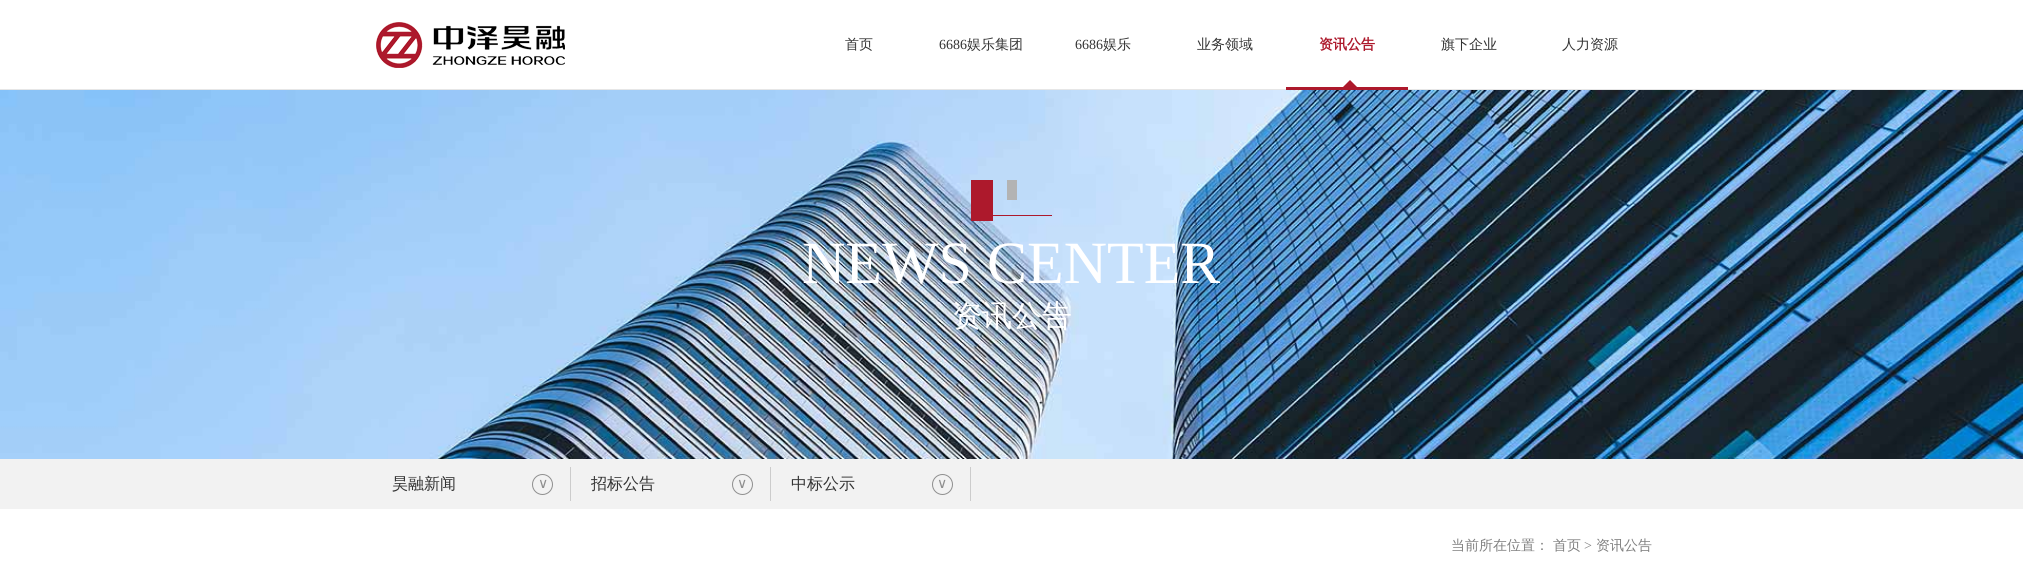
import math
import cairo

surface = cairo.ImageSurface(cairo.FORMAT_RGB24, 2023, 570)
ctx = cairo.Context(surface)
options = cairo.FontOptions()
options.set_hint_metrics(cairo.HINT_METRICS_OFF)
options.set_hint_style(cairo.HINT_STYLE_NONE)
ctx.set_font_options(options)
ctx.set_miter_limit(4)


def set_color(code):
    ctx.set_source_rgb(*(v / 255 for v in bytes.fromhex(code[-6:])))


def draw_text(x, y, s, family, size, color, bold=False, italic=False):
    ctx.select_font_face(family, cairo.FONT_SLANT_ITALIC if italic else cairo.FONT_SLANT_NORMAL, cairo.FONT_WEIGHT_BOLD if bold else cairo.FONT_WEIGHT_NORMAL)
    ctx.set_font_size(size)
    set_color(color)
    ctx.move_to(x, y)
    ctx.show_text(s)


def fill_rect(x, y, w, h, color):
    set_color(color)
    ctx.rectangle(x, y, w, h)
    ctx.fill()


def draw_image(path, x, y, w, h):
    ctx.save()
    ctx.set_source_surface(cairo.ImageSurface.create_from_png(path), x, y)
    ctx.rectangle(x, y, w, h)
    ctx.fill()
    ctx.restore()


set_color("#ffffff")
ctx.paint()
fill_rect(0, 89, 2023, 1, "#e6e6e6")
draw_image("assets/img1.png", 376, 22, 189, 46)
draw_text(845, 49, "首页", "WenQuanYi Zen Hei Medium", 14, "#333333")
draw_text(939, 49, "6686", "Liberation Serif", 14, "#333333")
draw_text(967, 49, "娱乐集团", "WenQuanYi Zen Hei Medium", 14, "#333333")
draw_text(1075, 49, "6686", "Liberation Serif", 14, "#333333")
draw_text(1103, 49, "娱乐", "WenQuanYi Zen Hei Medium", 14, "#333333")
draw_text(1197, 49, "业务领域", "WenQuanYi Zen Hei Medium", 14, "#333333")
draw_text(1319, 49, "资讯公告", "WenQuanYi Zen Hei", 14, "#ad192c", bold=True)
ctx.new_path()
ctx.move_to(1357, 87)
ctx.line_to(1343, 87)
ctx.line_to(1350, 80)
ctx.close_path()
ctx.fill()
fill_rect(1286, 87, 122, 3, "#ad192c")
draw_text(1441, 49, "旗下企业", "WenQuanYi Zen Hei Medium", 14, "#333333")
draw_text(1562, 49, "人力资源", "WenQuanYi Zen Hei Medium", 14, "#333333")
draw_image("assets/img2.png", 0, 90, 2023, 369)
draw_image("assets/img3.png", 971, 180, 81, 41)
fill_rect(1007, 180, 10, 20, "#b3b3b3")
draw_text(802, 283, "NEWS CENTER", "Liberation Serif", 60, "#ffffff")
draw_text(952, 326, "资讯公告", "WenQuanYi Zen Hei Medium", 30, "#ffffff")
fill_rect(0, 459, 2023, 50, "#f2f2f2")
draw_text(392, 489, "昊融新闻", "WenQuanYi Zen Hei Medium", 16, "#333333")
ctx.new_path()
ctx.arc(542.5, 484.5, 10, 0, 2 * math.pi)
set_color("#8e8e8e")
ctx.set_line_width(1)
ctx.stroke()
draw_text(538, 488, "∨", "DejaVu Sans", 14, "#8e8e8e")
fill_rect(570, 467, 1, 34, "#cccccc")
draw_text(591, 489, "招标公告", "WenQuanYi Zen Hei Medium", 16, "#333333")
ctx.new_path()
ctx.arc(742.5, 484.5, 10, 0, 2 * math.pi)
set_color("#8e8e8e")
ctx.stroke()
draw_text(737, 488, "∨", "DejaVu Sans", 14, "#8e8e8e")
fill_rect(770, 467, 1, 34, "#cccccc")
draw_text(791, 489, "中标公示", "WenQuanYi Zen Hei Medium", 16, "#333333")
ctx.new_path()
ctx.arc(942.5, 484.5, 10, 0, 2 * math.pi)
set_color("#8e8e8e")
ctx.stroke()
draw_text(937, 488, "∨", "DejaVu Sans", 14, "#8e8e8e")
fill_rect(970, 467, 1, 34, "#cccccc")
draw_text(1451, 550, "当前所在位置：", "WenQuanYi Zen Hei Medium", 14, "#808080")
draw_text(1553, 550, "首页", "WenQuanYi Zen Hei Medium", 14, "#808080")
draw_text(1584, 550, ">", "Liberation Serif", 14, "#808080")
draw_text(1596, 550, "资讯公告", "WenQuanYi Zen Hei Medium", 14, "#808080")
surface.write_to_png("output.png")
